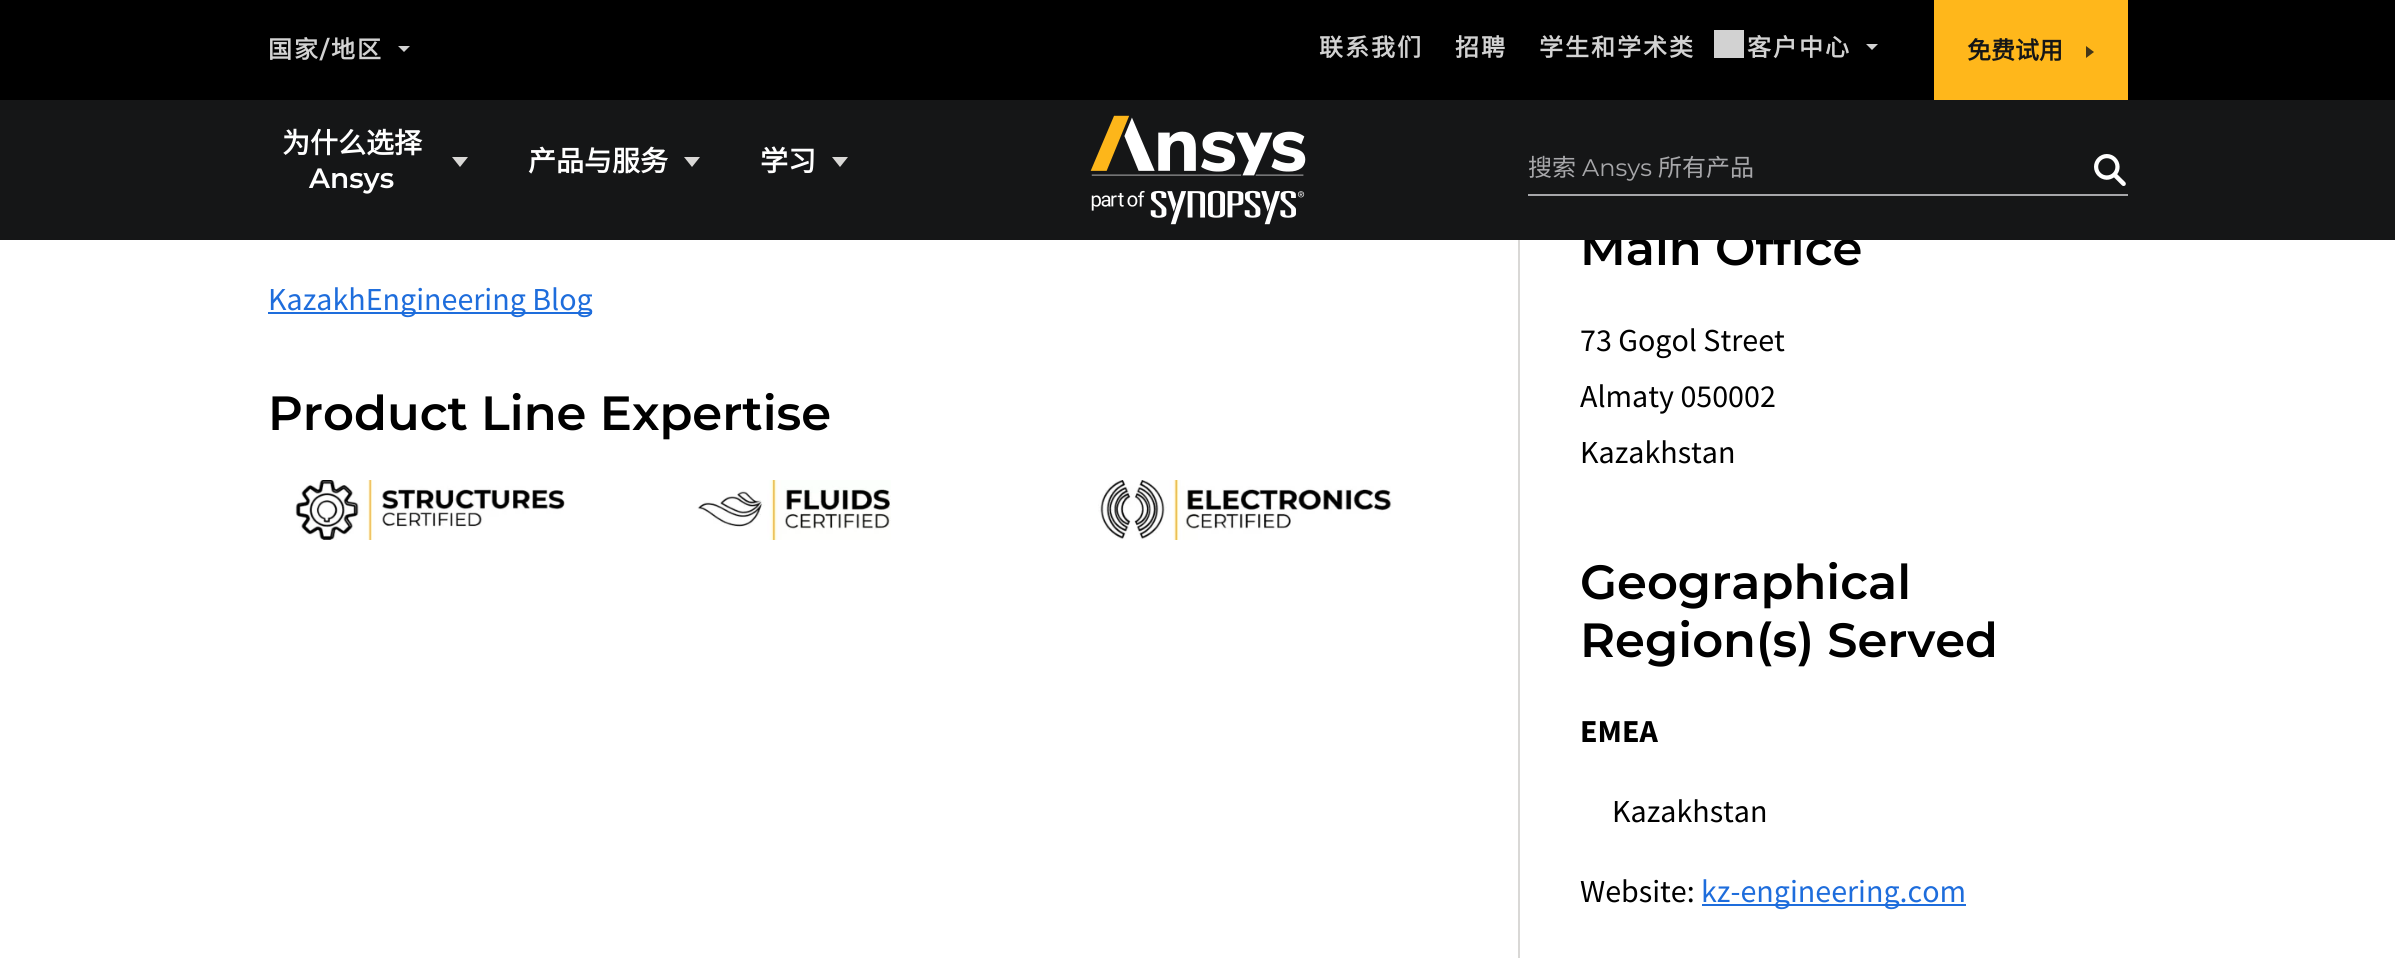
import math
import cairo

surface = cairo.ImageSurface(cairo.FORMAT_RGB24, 2395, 958)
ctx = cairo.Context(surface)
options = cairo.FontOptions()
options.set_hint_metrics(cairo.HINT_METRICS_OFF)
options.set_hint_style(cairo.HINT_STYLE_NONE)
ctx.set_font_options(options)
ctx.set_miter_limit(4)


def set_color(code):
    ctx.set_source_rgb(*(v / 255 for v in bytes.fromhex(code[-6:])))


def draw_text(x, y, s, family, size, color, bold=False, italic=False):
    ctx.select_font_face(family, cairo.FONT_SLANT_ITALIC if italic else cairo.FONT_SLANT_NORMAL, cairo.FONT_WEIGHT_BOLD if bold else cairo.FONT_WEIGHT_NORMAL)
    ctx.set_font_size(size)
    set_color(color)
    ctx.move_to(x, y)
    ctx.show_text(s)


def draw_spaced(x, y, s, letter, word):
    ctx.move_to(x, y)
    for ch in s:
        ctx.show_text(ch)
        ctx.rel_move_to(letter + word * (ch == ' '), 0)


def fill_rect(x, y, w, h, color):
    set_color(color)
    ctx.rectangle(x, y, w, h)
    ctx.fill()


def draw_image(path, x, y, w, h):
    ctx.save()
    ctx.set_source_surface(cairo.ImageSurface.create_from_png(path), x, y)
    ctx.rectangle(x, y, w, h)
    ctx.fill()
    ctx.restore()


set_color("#ffffff")
ctx.paint()
draw_text(1580, 265, "Main Office", "Montserrat SemiBold", 48, "#000000")
fill_rect(0, 100, 2395, 140, "#151617")
fill_rect(0, 0, 2395, 100, "#000000")
ctx.select_font_face("Noto Sans CJK SC", cairo.FONT_SLANT_NORMAL, cairo.FONT_WEIGHT_BOLD)
ctx.set_font_size(24)
set_color("#d2d2d2")
draw_spaced(268, 58, "国家", 2, 0)
ctx.select_font_face("Montserrat SemiBold")
draw_spaced(320, 58, "/", 2, 0)
ctx.select_font_face("Noto Sans CJK SC", cairo.FONT_SLANT_NORMAL, cairo.FONT_WEIGHT_BOLD)
draw_spaced(331, 58, "地区", 2, 0)
ctx.new_path()
ctx.move_to(398, 46)
ctx.line_to(410, 46)
ctx.line_to(404, 52)
ctx.close_path()
ctx.fill()
draw_spaced(1319, 56, "联系我们", 2, 0)
draw_spaced(1455, 56, "招聘", 2, 0)
draw_spaced(1539, 56, "学生和学术类", 2, 0)
fill_rect(1714, 30, 30, 28, "#d2d2d2")
draw_spaced(1747, 56, "客户中心", 2, 0)
ctx.new_path()
ctx.move_to(1866, 44)
ctx.line_to(1878, 44)
ctx.line_to(1872, 50)
ctx.close_path()
ctx.fill()
fill_rect(1934, 0, 194, 100, "#ffb71b")
draw_text(1967, 59, "免费试用", "Noto Sans CJK SC", 24, "#151617", bold=True)
set_color("#443618")
ctx.new_path()
ctx.move_to(2086, 58)
ctx.line_to(2086, 46)
ctx.line_to(2094, 52)
ctx.close_path()
ctx.fill()
draw_text(282, 153, "为什么选择", "Noto Sans CJK SC", 28, "#ffffff", bold=True)
set_color("#d9d8d6")
ctx.new_path()
ctx.move_to(452, 157)
ctx.line_to(468, 157)
ctx.line_to(460, 167)
ctx.close_path()
ctx.fill()
draw_text(309, 188, "Ansys", "Montserrat SemiBold", 28, "#ffffff")
draw_text(528, 171, "产品与服务", "Noto Sans CJK SC", 28, "#ffffff", bold=True)
set_color("#d9d8d6")
ctx.new_path()
ctx.move_to(684, 157)
ctx.line_to(700, 157)
ctx.line_to(692, 167)
ctx.close_path()
ctx.fill()
draw_text(760, 171, "学习", "Noto Sans CJK SC", 28, "#ffffff", bold=True)
set_color("#d9d8d6")
ctx.new_path()
ctx.move_to(832, 157)
ctx.line_to(848, 157)
ctx.line_to(840, 167)
ctx.close_path()
ctx.fill()
fill_rect(1528, 194, 600, 2, "#a7a7aa")
draw_text(1528, 176, "搜索", "Noto Sans CJK SC", 24, "#a7a7aa")
draw_text(1582, 176, "Ansys", "Montserrat", 24, "#a7a7aa")
draw_text(1658, 176, "所有产品", "Noto Sans CJK SC", 24, "#a7a7aa")
draw_image("assets/img1.png", 2094, 154, 32, 32)
draw_image("assets/img2.png", 1090, 115, 216, 110)
fill_rect(268, 312, 324, 2, "#1e6ddc")
draw_text(268, 310, "KazakhEngineering Blog", "Source Sans Pro", 32, "#1e6ddc")
draw_text(268, 430, "Product Line Expertise", "Montserrat SemiBold", 48, "#000000")
draw_image("assets/img3.png", 295, 480, 270, 60)
draw_image("assets/img4.png", 697, 480, 194, 60)
draw_image("assets/img5.png", 1098, 480, 294, 60)
fill_rect(1518, 240, 2, 718, "#d9d8d6")
draw_text(1580, 351, "73 Gogol Street", "Source Sans Pro", 32, "#000000")
draw_text(1580, 407, "Almaty 050002", "Source Sans Pro", 32, "#000000")
draw_text(1580, 463, "Kazakhstan", "Source Sans Pro", 32, "#000000")
draw_text(1580, 599, "Geographical", "Montserrat SemiBold", 48, "#000000")
draw_text(1580, 657, "Region(s) Served", "Montserrat SemiBold", 48, "#000000")
draw_text(1580, 742, "EMEA", "Source Sans Pro", 32, "#000000", bold=True)
draw_text(1612, 822, "Kazakhstan", "Source Sans Pro", 32, "#000000")
draw_text(1580, 902, "Website:", "Source Sans Pro", 32, "#000000")
fill_rect(1702, 904, 264, 2, "#1e6ddc")
draw_text(1701, 902, "kz-engineering.com", "Source Sans Pro", 32, "#1e6ddc")
surface.write_to_png("output.png")
